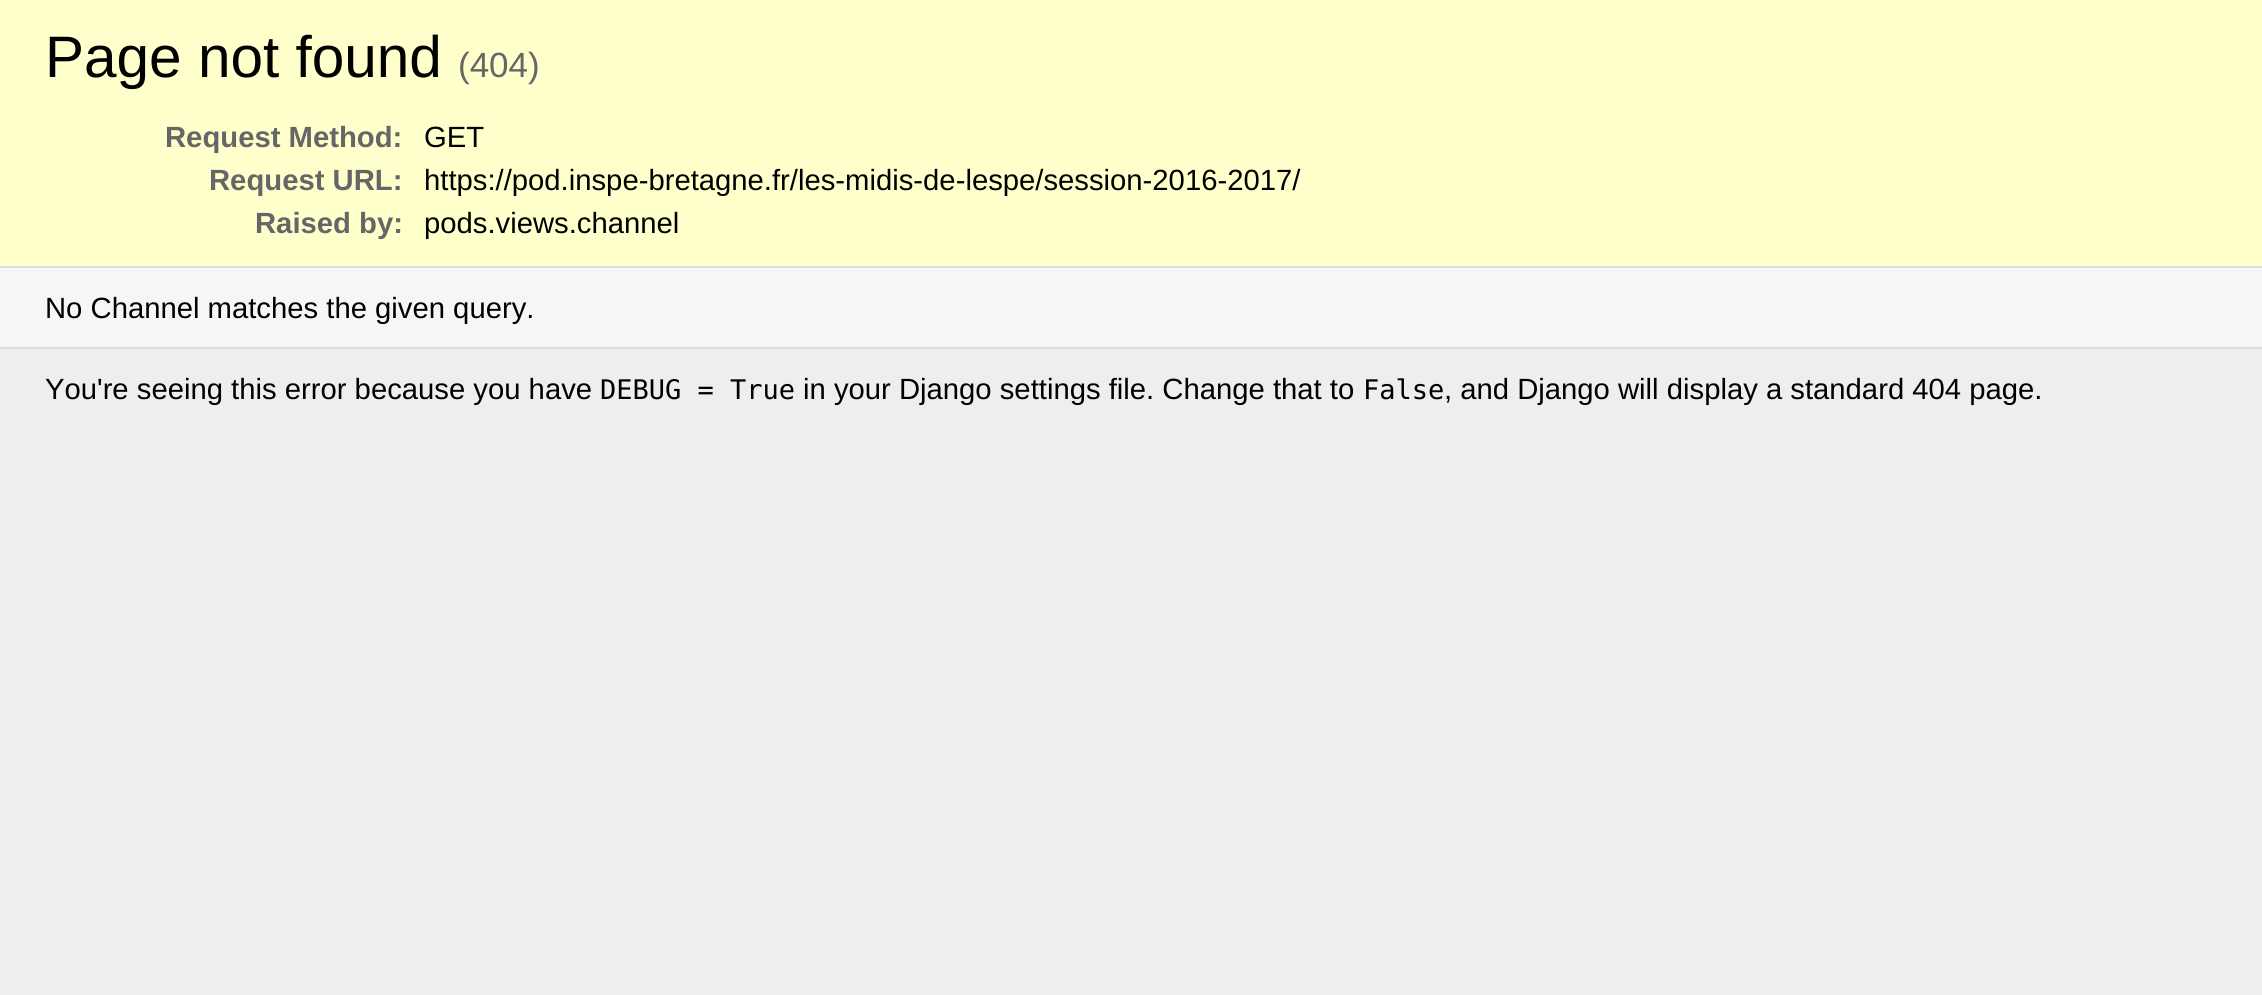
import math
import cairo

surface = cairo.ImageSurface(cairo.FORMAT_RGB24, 2262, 995)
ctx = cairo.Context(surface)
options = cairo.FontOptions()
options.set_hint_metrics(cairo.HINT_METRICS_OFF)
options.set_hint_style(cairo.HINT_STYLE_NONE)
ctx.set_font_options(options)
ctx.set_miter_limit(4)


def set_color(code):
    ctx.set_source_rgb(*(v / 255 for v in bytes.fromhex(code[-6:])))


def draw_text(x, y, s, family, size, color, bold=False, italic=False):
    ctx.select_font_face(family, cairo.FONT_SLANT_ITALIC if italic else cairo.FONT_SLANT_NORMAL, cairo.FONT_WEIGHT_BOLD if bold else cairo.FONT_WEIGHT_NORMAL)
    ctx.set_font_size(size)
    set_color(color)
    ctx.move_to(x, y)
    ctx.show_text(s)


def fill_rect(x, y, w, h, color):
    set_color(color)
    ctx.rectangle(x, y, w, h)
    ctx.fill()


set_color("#eeeeee")
ctx.paint()
fill_rect(0, 0, 2262, 266, "#ffffcc")
fill_rect(0, 266, 2262, 2, "#dddddd")
draw_text(45, 77, "Page not found", "Liberation Sans", 58.5, "#000000")
draw_text(458, 77, "(404)", "Liberation Sans", 35, "#666666")
draw_text(165, 147, "Request Method:", "Liberation Sans", 29.25, "#666666", bold=True)
draw_text(424, 147, "GET", "Liberation Sans", 29.25, "#000000")
draw_text(209, 190, "Request URL:", "Liberation Sans", 29.25, "#666666", bold=True)
draw_text(424, 190, "https://pod.inspe-bretagne.fr/les-midis-de-lespe/session-2016-2017/", "Liberation Sans", 29.25, "#000000")
draw_text(255, 233, "Raised by:", "Liberation Sans", 29.25, "#666666", bold=True)
draw_text(424, 233, "pods.views.channel", "Liberation Sans", 29.25, "#000000")
fill_rect(0, 268, 2262, 79, "#f6f6f6")
fill_rect(0, 347, 2262, 2, "#dddddd")
draw_text(45, 318, "No Channel matches the given query.", "Liberation Sans", 29.25, "#000000")
draw_text(45, 399, "You're seeing this error because you have", "Liberation Sans", 29.25, "#000000")
draw_text(600, 399, "DEBUG = True", "DejaVu Sans Mono", 27, "#000000")
draw_text(803, 399, "in your Django settings file. Change that to", "Liberation Sans", 29.25, "#000000")
draw_text(1363, 399, "False", "DejaVu Sans Mono", 27, "#000000")
draw_text(1444, 399, ", and Django will display a standard 404 page.", "Liberation Sans", 29.25, "#000000")
surface.write_to_png("output.png")
